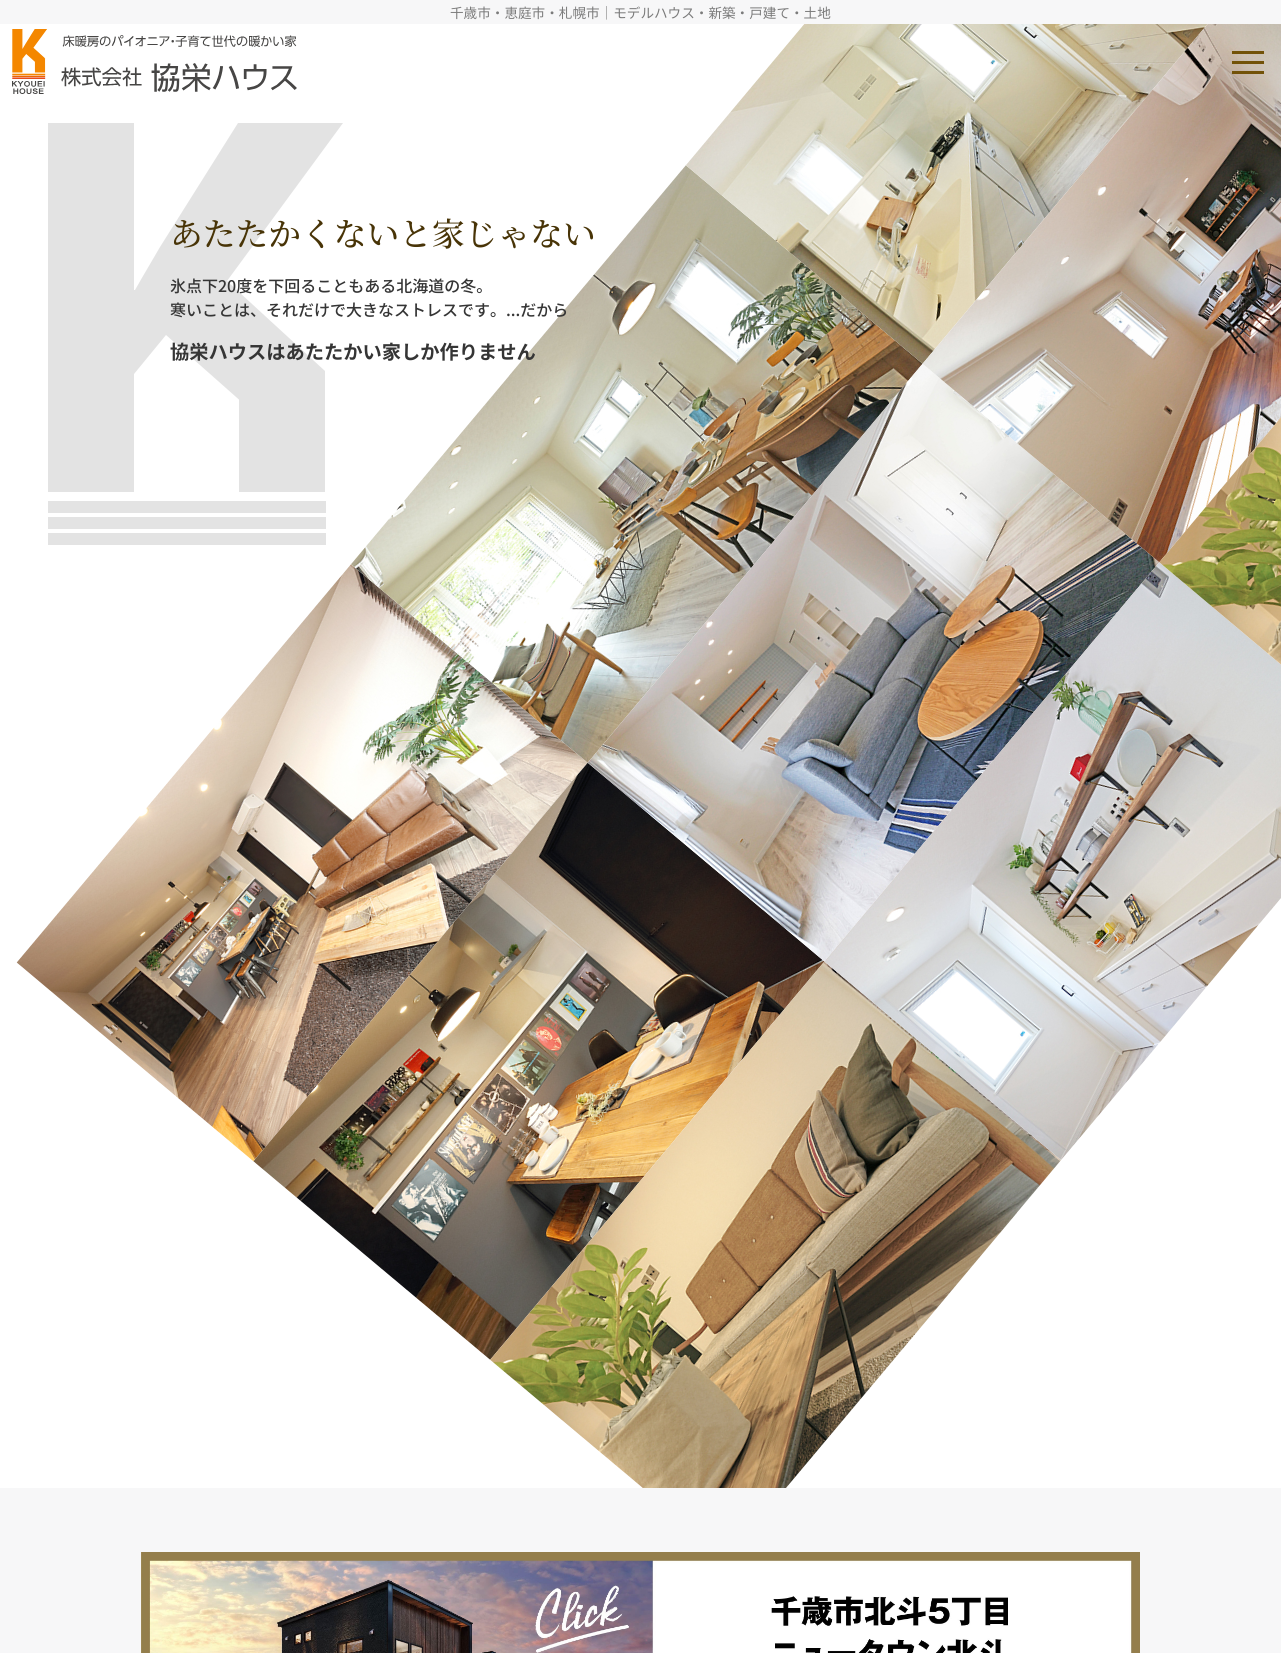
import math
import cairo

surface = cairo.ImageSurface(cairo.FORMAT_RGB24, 1281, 1653)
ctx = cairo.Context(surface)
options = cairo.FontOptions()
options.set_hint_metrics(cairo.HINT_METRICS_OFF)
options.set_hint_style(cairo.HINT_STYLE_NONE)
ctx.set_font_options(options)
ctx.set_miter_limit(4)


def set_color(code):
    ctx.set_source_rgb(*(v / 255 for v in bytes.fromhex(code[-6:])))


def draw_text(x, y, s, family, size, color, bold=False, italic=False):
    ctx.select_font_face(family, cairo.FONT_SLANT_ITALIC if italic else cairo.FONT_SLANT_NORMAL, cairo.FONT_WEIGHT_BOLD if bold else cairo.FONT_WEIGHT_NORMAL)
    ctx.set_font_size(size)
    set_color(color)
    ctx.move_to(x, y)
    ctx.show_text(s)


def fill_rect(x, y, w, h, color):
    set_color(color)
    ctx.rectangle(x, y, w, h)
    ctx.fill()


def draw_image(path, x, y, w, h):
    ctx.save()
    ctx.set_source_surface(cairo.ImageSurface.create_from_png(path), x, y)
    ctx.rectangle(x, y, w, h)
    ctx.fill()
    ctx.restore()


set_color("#f7f7f8")
ctx.paint()
draw_text(450, 18, "千歳市・恵庭市・札幌市｜モデルハウス・新築・戸建て・土地", "Noto Sans JP", 13.6, "#7b7b7b")
fill_rect(0, 24, 1281, 1464, "#ffffff")
draw_image("assets/img1.png", 12, 29, 285, 65)
draw_image("assets/img4.png", 16, 564, 572, 598)
draw_image("assets/img2.png", 351, 165, 572, 598)
draw_image("assets/img3.png", 686, 24, 522, 340)
draw_image("assets/img7.png", 253, 762, 572, 598)
draw_image("assets/img6.png", 588, 363, 572, 598)
draw_image("assets/img5.png", 922, 24, 359, 539)
fill_rect(1232, 51, 32, 3, "#725208")
fill_rect(1232, 61, 32, 3, "#725208")
fill_rect(1232, 71, 32, 3, "#725208")
draw_image("assets/img10.png", 490, 961, 571, 527)
draw_image("assets/img9.png", 825, 562, 456, 598)
draw_image("assets/img8.png", 1159, 417, 122, 248)
set_color("#e3e3e3")
ctx.new_path()
ctx.move_to(48, 123)
ctx.line_to(134, 123)
ctx.line_to(134, 290)
ctx.line_to(135, 290)
ctx.curve_to(144, 274, 152, 261, 160, 247)
ctx.line_to(238, 123)
ctx.line_to(343, 123)
ctx.line_to(227, 281)
ctx.line_to(325, 371)
ctx.line_to(253, 412)
ctx.line_to(166, 335)
ctx.line_to(134, 374)
ctx.line_to(134, 492)
ctx.line_to(48, 492)
ctx.close_path()
ctx.fill()
ctx.new_path()
ctx.move_to(325, 371)
ctx.line_to(325, 492)
ctx.line_to(239, 492)
ctx.line_to(239, 366)
ctx.fill()
fill_rect(48, 501, 278, 12, "#e3e3e3")
fill_rect(48, 517, 278, 12, "#e3e3e3")
fill_rect(48, 533, 278, 12, "#e3e3e3")
draw_text(170, 246, "あたたかくないと家じゃない", "Noto Serif JP Medium", 32.75, "#483407")
draw_text(170, 292, "氷点下20度を下回ることもある北海道の冬。", "Noto Sans JP Medium", 16, "#353535")
draw_text(170, 316, "寒いことは、それだけで大きなストレスです。...だから", "Noto Sans JP Medium", 16, "#353535")
draw_text(170, 359, "協栄ハウスはあたたかい家しか作りません", "Noto Sans JP", 19.25, "#353535", bold=True)
draw_image("assets/img11.png", 141, 1552, 999, 101)
surface.write_to_png("output.png")
